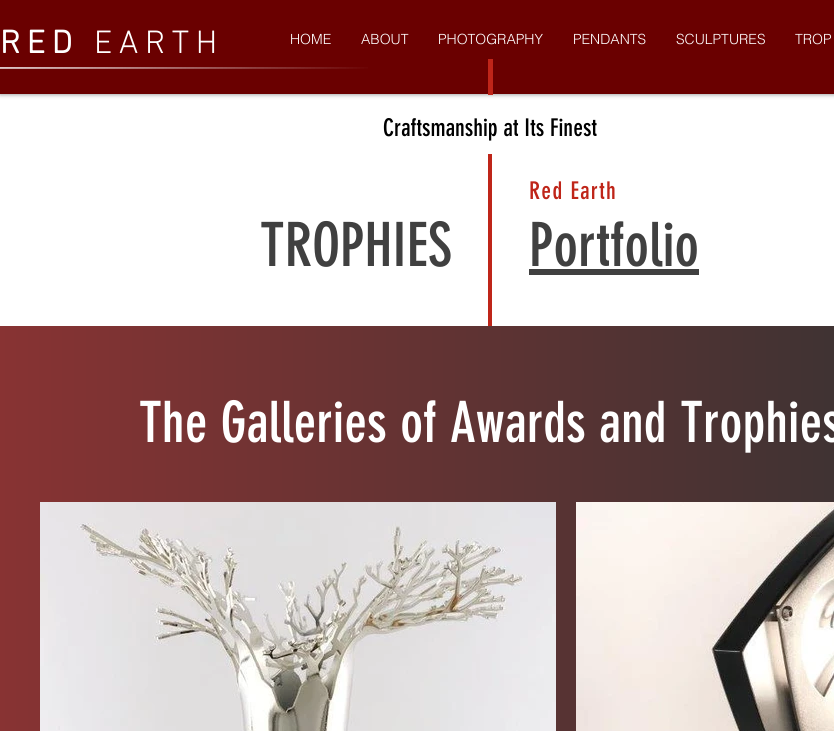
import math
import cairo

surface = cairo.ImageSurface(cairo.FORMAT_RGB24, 834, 731)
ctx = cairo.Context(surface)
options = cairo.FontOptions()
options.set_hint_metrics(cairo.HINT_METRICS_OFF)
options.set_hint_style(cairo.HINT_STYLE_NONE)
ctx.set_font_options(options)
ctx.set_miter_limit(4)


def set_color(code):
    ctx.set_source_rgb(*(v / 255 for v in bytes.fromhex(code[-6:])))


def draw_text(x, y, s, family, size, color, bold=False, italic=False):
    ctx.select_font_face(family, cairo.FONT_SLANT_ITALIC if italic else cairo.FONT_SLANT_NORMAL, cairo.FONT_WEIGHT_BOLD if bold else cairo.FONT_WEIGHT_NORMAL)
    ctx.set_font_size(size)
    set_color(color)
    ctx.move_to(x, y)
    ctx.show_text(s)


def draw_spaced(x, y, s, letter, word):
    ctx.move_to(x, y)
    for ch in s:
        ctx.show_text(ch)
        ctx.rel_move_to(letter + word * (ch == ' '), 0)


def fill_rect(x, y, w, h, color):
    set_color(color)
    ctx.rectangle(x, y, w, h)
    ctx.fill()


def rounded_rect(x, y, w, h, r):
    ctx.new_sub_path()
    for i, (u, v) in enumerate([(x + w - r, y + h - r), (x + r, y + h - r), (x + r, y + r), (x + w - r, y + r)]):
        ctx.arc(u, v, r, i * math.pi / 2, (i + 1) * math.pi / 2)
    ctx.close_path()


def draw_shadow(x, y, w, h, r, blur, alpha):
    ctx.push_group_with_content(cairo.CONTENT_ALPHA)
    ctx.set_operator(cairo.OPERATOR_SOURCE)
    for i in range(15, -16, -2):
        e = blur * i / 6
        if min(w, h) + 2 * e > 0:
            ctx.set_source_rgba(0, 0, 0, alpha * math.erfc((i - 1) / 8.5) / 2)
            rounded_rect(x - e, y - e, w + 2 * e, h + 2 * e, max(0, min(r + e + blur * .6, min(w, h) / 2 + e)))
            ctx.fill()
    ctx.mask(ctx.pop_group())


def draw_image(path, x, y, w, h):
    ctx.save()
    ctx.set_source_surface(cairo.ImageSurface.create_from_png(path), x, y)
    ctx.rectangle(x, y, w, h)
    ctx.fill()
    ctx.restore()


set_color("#ffffff")
ctx.paint()
set_color("#000000")
draw_shadow(0, 0, 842, 94, 0, 2.5, 0.5)
fill_rect(0, 0, 834, 94, "#6a0000")
ctx.select_font_face("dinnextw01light", cairo.FONT_SLANT_NORMAL, cairo.FONT_WEIGHT_BOLD)
ctx.set_font_size(33)
set_color("#ffffff")
draw_spaced(0, 53, "RED", 6.5, 0)
ctx.select_font_face("dinnextw01light Light")
draw_spaced(94, 53, "EARTH", 6.5, 0)
draw_text(290, 44, "HOME", "helvetica Light", 14, "#ffffff")
draw_text(361, 44, "ABOUT", "helvetica Light", 14, "#ffffff")
draw_text(438, 44, "PHOTOGRAPHY", "helvetica Light", 14, "#ffffff")
draw_text(573, 44, "PENDANTS", "helvetica Light", 14, "#ffffff")
draw_text(676, 44, "SCULPTURES", "helvetica Light", 14, "#ffffff")
draw_text(795, 44, "TROP", "helvetica Light", 14, "#ffffff")
draw_image("assets/img1.png", 0, 67, 368, 2)
fill_rect(488, 59, 5, 36, "#bf2519")
draw_text(383, 136, "Craftsmanship at Its Finest", "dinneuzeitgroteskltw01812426", 24, "#000000")
fill_rect(488, 154, 4, 172, "#bf2519")
draw_spaced(529, 199, "Red Earth", 1.25, 0)
draw_text(260, 266, "TROPHIES", "dinneuzeitgroteskltw01812426", 60, "#404040")
draw_text(529, 266, "Portfolio", "dinneuzeitgroteskltw01812426", 60, "#404040")
fill_rect(529, 269, 170, 6, "#404040")
gradient = cairo.LinearGradient(0, 695, 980, 695)
gradient.add_color_stop_rgba(0, 0.533, 0.2, 0.2, 1)
gradient.add_color_stop_rgba(1, 0.2, 0.2, 0.2, 1)
ctx.set_source(gradient)
ctx.rectangle(0, 326, 834, 405)
ctx.fill()
draw_text(139, 442, "The Galleries of Awards and Trophies", "dinneuzeitgroteskltw01812426", 56, "#ffffff")
draw_image("assets/img2.png", 40, 502, 516, 229)
draw_image("assets/img3.png", 576, 502, 258, 229)
surface.write_to_png("output.png")
